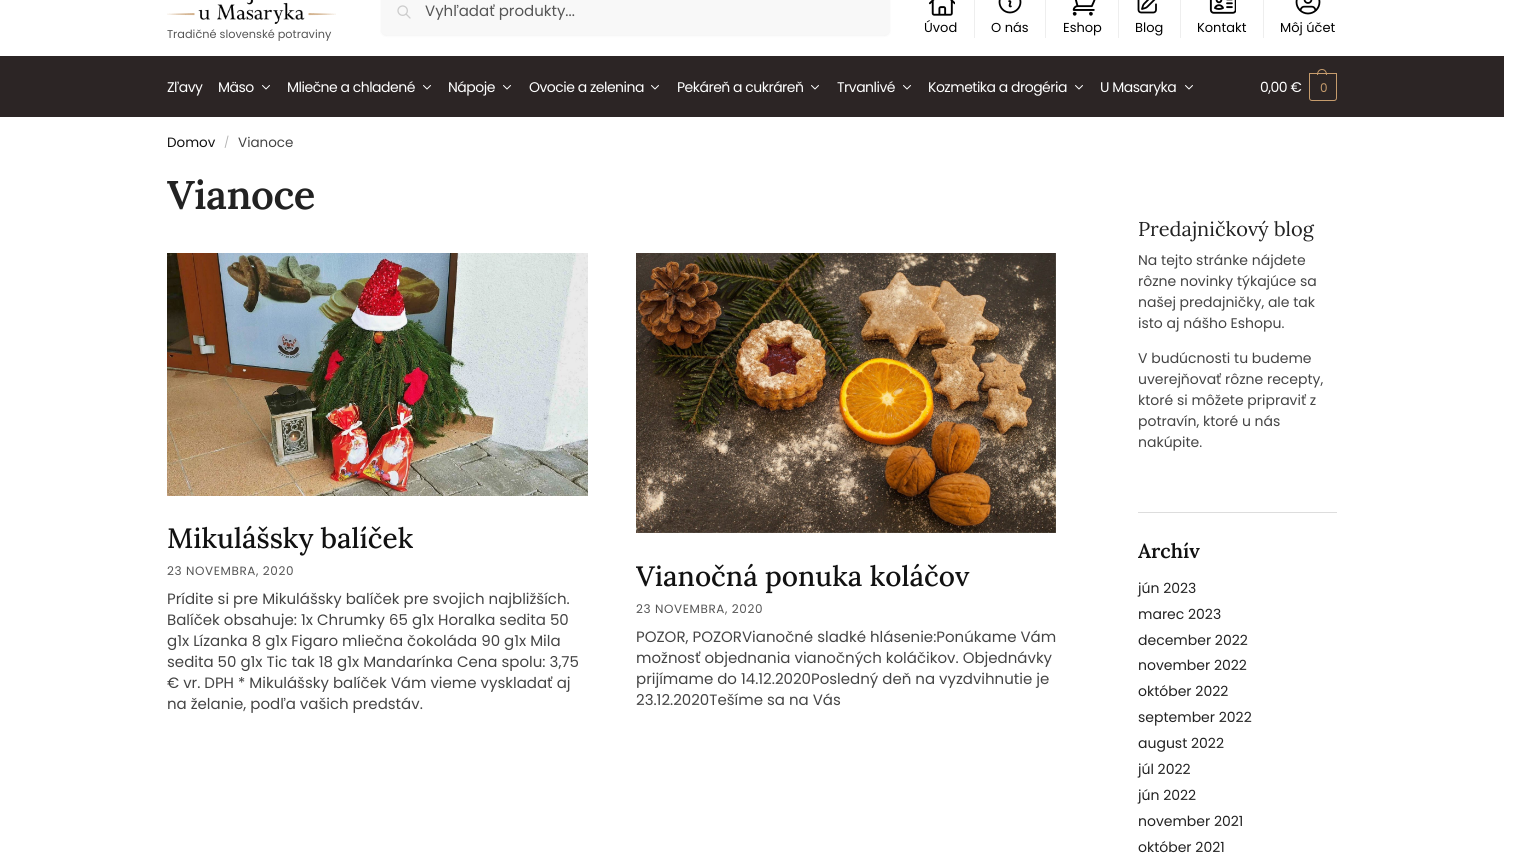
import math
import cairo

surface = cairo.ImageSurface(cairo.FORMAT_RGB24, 1519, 868)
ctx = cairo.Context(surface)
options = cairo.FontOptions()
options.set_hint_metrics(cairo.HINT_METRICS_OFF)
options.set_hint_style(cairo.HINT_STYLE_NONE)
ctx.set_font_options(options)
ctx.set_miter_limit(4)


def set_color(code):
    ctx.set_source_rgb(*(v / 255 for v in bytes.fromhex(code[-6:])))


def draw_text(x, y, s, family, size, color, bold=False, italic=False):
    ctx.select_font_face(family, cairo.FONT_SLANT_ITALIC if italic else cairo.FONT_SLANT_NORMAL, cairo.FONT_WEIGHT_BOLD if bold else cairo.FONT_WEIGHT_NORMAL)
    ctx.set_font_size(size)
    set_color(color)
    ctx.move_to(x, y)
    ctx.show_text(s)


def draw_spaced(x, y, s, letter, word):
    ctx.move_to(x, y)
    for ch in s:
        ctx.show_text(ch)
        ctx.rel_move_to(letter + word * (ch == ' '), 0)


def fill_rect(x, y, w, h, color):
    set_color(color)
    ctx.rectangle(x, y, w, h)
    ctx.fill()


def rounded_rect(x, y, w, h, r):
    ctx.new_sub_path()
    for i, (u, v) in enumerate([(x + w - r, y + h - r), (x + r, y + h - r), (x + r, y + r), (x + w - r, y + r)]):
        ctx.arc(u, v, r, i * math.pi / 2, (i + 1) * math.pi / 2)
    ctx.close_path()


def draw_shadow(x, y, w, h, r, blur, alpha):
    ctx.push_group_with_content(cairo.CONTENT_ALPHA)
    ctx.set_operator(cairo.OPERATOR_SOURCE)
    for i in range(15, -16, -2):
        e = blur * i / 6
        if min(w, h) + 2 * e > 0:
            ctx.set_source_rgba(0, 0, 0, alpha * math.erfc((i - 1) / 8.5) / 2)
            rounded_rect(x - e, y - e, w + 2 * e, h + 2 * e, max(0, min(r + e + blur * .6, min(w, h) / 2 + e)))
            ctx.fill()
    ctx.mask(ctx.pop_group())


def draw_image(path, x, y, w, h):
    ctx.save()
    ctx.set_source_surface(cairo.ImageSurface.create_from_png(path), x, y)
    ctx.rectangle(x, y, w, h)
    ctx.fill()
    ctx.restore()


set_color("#ffffff")
ctx.paint()
set_color("#000000")
draw_shadow(381, -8, 509, 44, 5, 1, 0.05)
set_color("#f8f8f8")
rounded_rect(381, -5, 509, 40, 5)
ctx.fill()
draw_image("assets/img1.png", 397, 5, 14, 14)
draw_text(425, 16, "Vyhľadať produkty...", "Poppins", 15, "#555555")
draw_image("assets/img2.png", 167, 0, 169, 24)
draw_text(167, 38, "Tradičné slovenské potraviny", "Poppins", 11.3, "#555555")
draw_image("assets/img3.png", 928, 0, 27, 16)
draw_text(924, 32, "Úvod", "Poppins", 13, "#000000")
fill_rect(974, 0, 1, 38, "#eeeeee")
draw_image("assets/img4.png", 998, 0, 24, 14)
draw_text(991, 32, "O nás", "Poppins", 13, "#000000")
fill_rect(1045, 0, 1, 38, "#eeeeee")
draw_image("assets/img5.png", 1072, 0, 24, 16)
draw_text(1063, 32, "Eshop", "Poppins", 13, "#000000")
fill_rect(1118, 0, 1, 38, "#eeeeee")
draw_image("assets/img6.png", 1137, 0, 20, 14)
draw_text(1135, 32, "Blog", "Poppins", 13, "#000000")
fill_rect(1180, 0, 1, 38, "#eeeeee")
draw_image("assets/img7.png", 1209, 0, 27, 14)
draw_text(1197, 32, "Kontakt", "Poppins", 13, "#000000")
fill_rect(1263, 0, 1, 38, "#eeeeee")
draw_image("assets/img8.png", 1295, 0, 26, 15)
draw_text(1280, 32, "Môj účet", "Poppins", 13, "#000000")
fill_rect(0, 56, 1504, 61, "#2c2525")
ctx.set_font_size(14)
set_color("#ffffff")
draw_spaced(167, 92, "Zľavy", -0.5, 0)
draw_spaced(218, 92, "Mäso", -0.5, 0)
ctx.new_path()
ctx.move_to(269.5, 85.5)
ctx.line_to(266, 89)
ctx.line_to(262.5, 85.5)
ctx.set_line_width(1)
ctx.set_line_cap(cairo.LINE_CAP_ROUND)
ctx.set_line_join(cairo.LINE_JOIN_ROUND)
ctx.stroke()
draw_spaced(287, 92, "Mliečne a chladené", -0.5, 0)
ctx.new_path()
ctx.move_to(430.5, 85.5)
ctx.line_to(427, 89)
ctx.line_to(423.5, 85.5)
ctx.stroke()
draw_spaced(448, 92, "Nápoje", -0.5, 0)
ctx.new_path()
ctx.move_to(510.5, 85.5)
ctx.line_to(507, 89)
ctx.line_to(503.5, 85.5)
ctx.stroke()
draw_spaced(529, 92, "Ovocie a zelenina", -0.5, 0)
ctx.new_path()
ctx.move_to(658.5, 85.5)
ctx.line_to(655, 89)
ctx.line_to(651.5, 85.5)
ctx.stroke()
draw_spaced(677, 92, "Pekáreň a cukráreň", -0.5, 0)
ctx.new_path()
ctx.move_to(818.5, 85.5)
ctx.line_to(815, 89)
ctx.line_to(811.5, 85.5)
ctx.stroke()
draw_spaced(837, 92, "Trvanlivé", -0.5, 0)
ctx.new_path()
ctx.move_to(910.5, 85.5)
ctx.line_to(907, 89)
ctx.line_to(903.5, 85.5)
ctx.stroke()
draw_spaced(928, 92, "Kozmetika a drogéria", -0.5, 0)
ctx.new_path()
ctx.move_to(1082.5, 85.5)
ctx.line_to(1079, 89)
ctx.line_to(1075.5, 85.5)
ctx.stroke()
draw_spaced(1100, 92, "U Masaryka", -0.5, 0)
ctx.new_path()
ctx.move_to(1192.5, 85.5)
ctx.line_to(1189, 89)
ctx.line_to(1185.5, 85.5)
ctx.stroke()
draw_spaced(1260, 92, "0,00 €", -0.5, 0)
ctx.new_path()
ctx.move_to(1309.5, 73.5)
ctx.line_to(1336.5, 73.5)
ctx.line_to(1336.5, 98)
ctx.curve_to(1336.5, 99.5, 1335.5, 100.5, 1334, 100.5)
ctx.line_to(1312, 100.5)
ctx.curve_to(1310.5, 100.5, 1309.5, 99.5, 1309.5, 98)
ctx.close_path()
set_color("#c69c6d")
ctx.set_line_cap(cairo.LINE_CAP_BUTT)
ctx.set_line_join(cairo.LINE_JOIN_MITER)
ctx.stroke()
ctx.set_fill_rule(cairo.FILL_RULE_EVEN_ODD)
ctx.new_path()
ctx.move_to(1322, 69)
ctx.curve_to(1325.5, 69, 1327, 72, 1327, 75)
ctx.line_to(1317, 75)
ctx.curve_to(1317, 72, 1318.5, 69, 1322, 69)
ctx.close_path()
ctx.move_to(1322, 70)
ctx.curve_to(1325, 70, 1326, 72.5, 1326, 75)
ctx.line_to(1318, 75)
ctx.curve_to(1318, 72.5, 1319, 70, 1322, 70)
ctx.close_path()
ctx.fill()
ctx.set_font_size(12)
draw_spaced(1320, 92, "0", -1, 0)
draw_text(167, 147, "Domov", "Poppins", 13.5, "#111111")
draw_text(224, 146, "/", "Poppins", 11, "#b4b4b4")
draw_text(238, 147, "Vianoce", "Poppins", 13.5, "#444444")
ctx.select_font_face("Lora SemiBold")
ctx.set_font_size(40)
set_color("#222222")
draw_spaced(167, 209, "Vianoce", -0.5, 0)
draw_image("assets/img9.png", 167, 253, 421, 243)
draw_text(167, 548, "Mikulášsky balíček", "Lora Medium", 28, "#111111")
ctx.select_font_face("Poppins")
ctx.set_font_size(12)
set_color("#555555")
draw_spaced(167, 575, "23 NOVEMBRA, 2020", 0.6, 0)
draw_text(167, 604, "Prídite si pre Mikulášsky balíček pre svojich najbližších.", "Poppins", 15, "#444444")
draw_text(167, 625, "Balíček obsahuje: 1x Chrumky 65 g1x Horalka sedita 50", "Poppins", 15, "#444444")
draw_text(167, 646, "g1x Lízanka 8 g1x Figaro mliečna čokoláda 90 g1x Mila", "Poppins", 15, "#444444")
draw_text(167, 667, "sedita 50 g1x Tic tak 18 g1x Mandarínka Cena spolu: 3,75", "Poppins", 15, "#444444")
draw_text(167, 688, "€ vr. DPH * Mikulášsky balíček Vám vieme vyskladať aj", "Poppins", 15, "#444444")
draw_text(167, 709, "na želanie, podľa vašich predstáv.", "Poppins", 15, "#444444")
draw_image("assets/img10.png", 636, 253, 420, 280)
draw_text(636, 586, "Vianočná ponuka koláčov", "Lora Medium", 28, "#111111")
ctx.select_font_face("Poppins")
ctx.set_font_size(12)
set_color("#555555")
draw_spaced(636, 613, "23 NOVEMBRA, 2020", 0.6, 0)
draw_text(636, 642, "POZOR, POZORVianočné sladké hlásenie:Ponúkame Vám", "Poppins", 15, "#444444")
draw_text(636, 663, "možnosť objednania vianočných koláčikov. Objednávky", "Poppins", 15, "#444444")
draw_text(636, 684, "prijímame do 14.12.2020Posledný deň na vyzdvihnutie je", "Poppins", 15, "#444444")
draw_text(636, 705, "23.12.2020Tešíme sa na Vás", "Poppins", 15, "#444444")
fill_rect(1138, 512, 199, 1, "#dddddd")
draw_text(1138, 236, "Predajničkový blog", "Lora", 20, "#222222")
draw_text(1138, 265, "Na tejto stránke nájdete", "Poppins", 14, "#444444")
draw_text(1138, 286, "rôzne novinky týkajúce sa", "Poppins", 14, "#444444")
draw_text(1138, 307, "našej predajničky, ale tak", "Poppins", 14, "#444444")
draw_text(1138, 328, "isto aj nášho Eshopu.", "Poppins", 14, "#444444")
draw_text(1138, 363, "V budúcnosti tu budeme", "Poppins", 14, "#444444")
draw_text(1138, 384, "uverejňovať rôzne recepty,", "Poppins", 14, "#444444")
draw_text(1138, 405, "ktoré si môžete pripraviť z", "Poppins", 14, "#444444")
draw_text(1138, 426, "potravín, ktoré u nás", "Poppins", 14, "#444444")
draw_text(1138, 447, "nakúpite.", "Poppins", 14, "#444444")
draw_text(1138, 558, "Archív", "Lora SemiBold", 20, "#111111")
draw_text(1138, 593, "jún 2023", "Poppins", 14, "#222222")
draw_text(1138, 619, "marec 2023", "Poppins", 14, "#222222")
draw_text(1138, 645, "december 2022", "Poppins", 14, "#222222")
draw_text(1138, 670, "november 2022", "Poppins", 14, "#222222")
draw_text(1138, 696, "október 2022", "Poppins", 14, "#222222")
draw_text(1138, 722, "september 2022", "Poppins", 14, "#222222")
draw_text(1138, 748, "august 2022", "Poppins", 14, "#222222")
draw_text(1138, 774, "júl 2022", "Poppins", 14, "#222222")
draw_text(1138, 800, "jún 2022", "Poppins", 14, "#222222")
draw_text(1138, 826, "november 2021", "Poppins", 14, "#222222")
draw_text(1138, 852, "október 2021", "Poppins", 14, "#222222")
surface.write_to_png("output.png")
